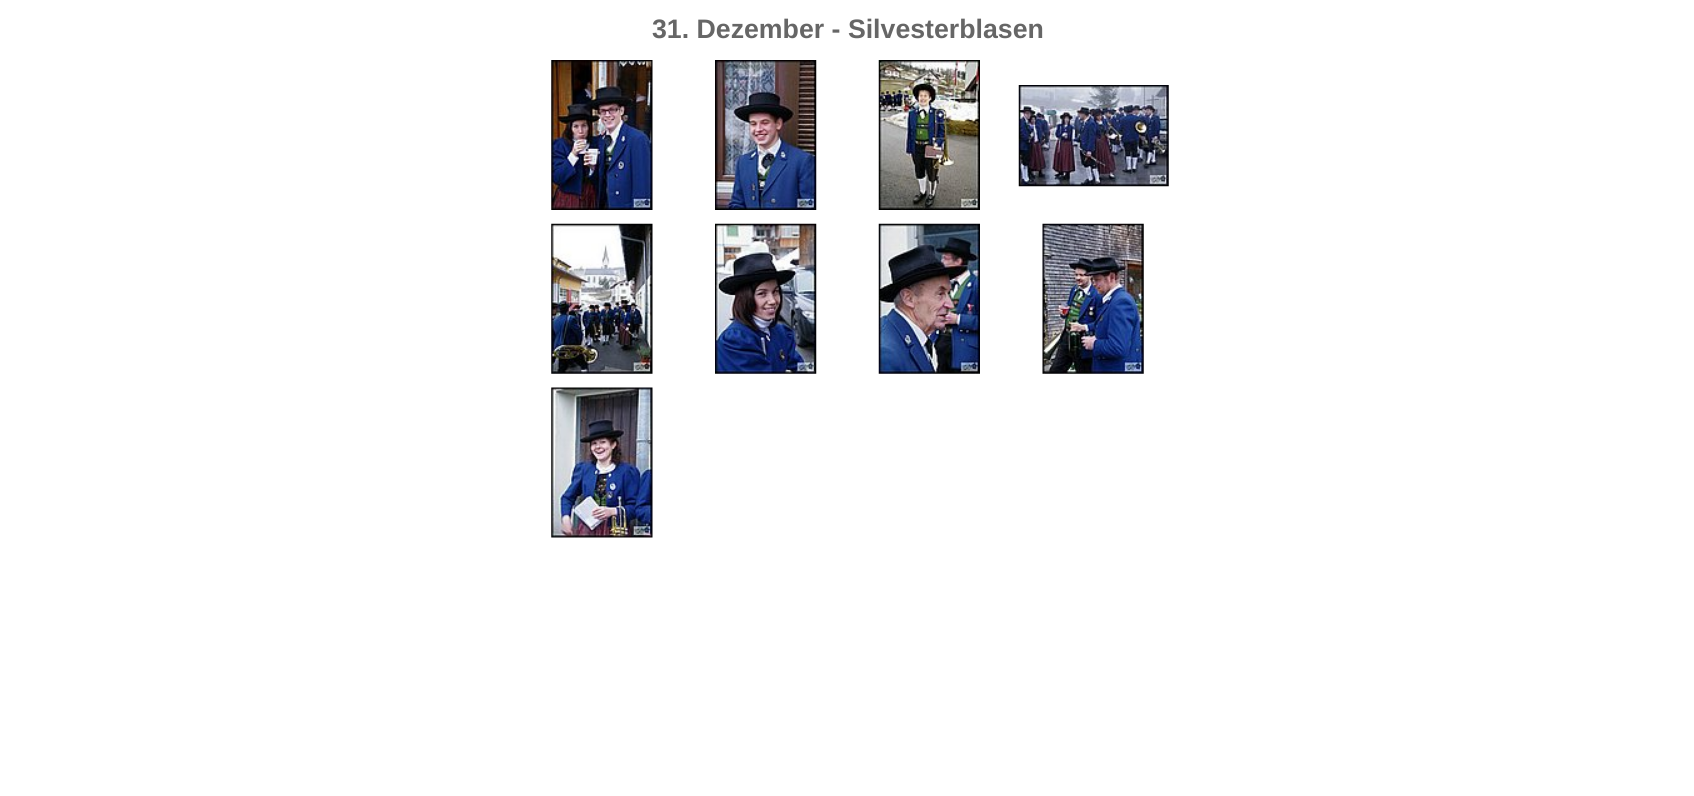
import math
import cairo

surface = cairo.ImageSurface(cairo.FORMAT_RGB24, 1694, 796)
ctx = cairo.Context(surface)
options = cairo.FontOptions()
options.set_hint_metrics(cairo.HINT_METRICS_OFF)
options.set_hint_style(cairo.HINT_STYLE_NONE)
ctx.set_font_options(options)
ctx.set_miter_limit(4)


def set_color(code):
    ctx.set_source_rgb(*(v / 255 for v in bytes.fromhex(code[-6:])))


def draw_text(x, y, s, family, size, color, bold=False, italic=False):
    ctx.select_font_face(family, cairo.FONT_SLANT_ITALIC if italic else cairo.FONT_SLANT_NORMAL, cairo.FONT_WEIGHT_BOLD if bold else cairo.FONT_WEIGHT_NORMAL)
    ctx.set_font_size(size)
    set_color(color)
    ctx.move_to(x, y)
    ctx.show_text(s)


def draw_image(path, x, y, w, h):
    ctx.save()
    ctx.set_source_surface(cairo.ImageSurface.create_from_png(path), x, y)
    ctx.rectangle(x, y, w, h)
    ctx.fill()
    ctx.restore()


set_color("#ffffff")
ctx.paint()
draw_text(652, 38, "31. Dezember - Silvesterblasen", "Liberation Sans", 26.7, "#666666", bold=True)
draw_image("assets/img1.png", 551, 60, 102, 150)
draw_image("assets/img2.png", 715, 60, 102, 150)
draw_image("assets/img3.png", 878, 60, 102, 150)
draw_image("assets/img4.png", 1018, 85, 151, 102)
draw_image("assets/img5.png", 551, 223, 102, 151)
draw_image("assets/img6.png", 715, 223, 102, 151)
draw_image("assets/img7.png", 878, 223, 102, 151)
draw_image("assets/img8.png", 1042, 223, 102, 151)
draw_image("assets/img9.png", 551, 387, 102, 151)
surface.write_to_png("output.png")
